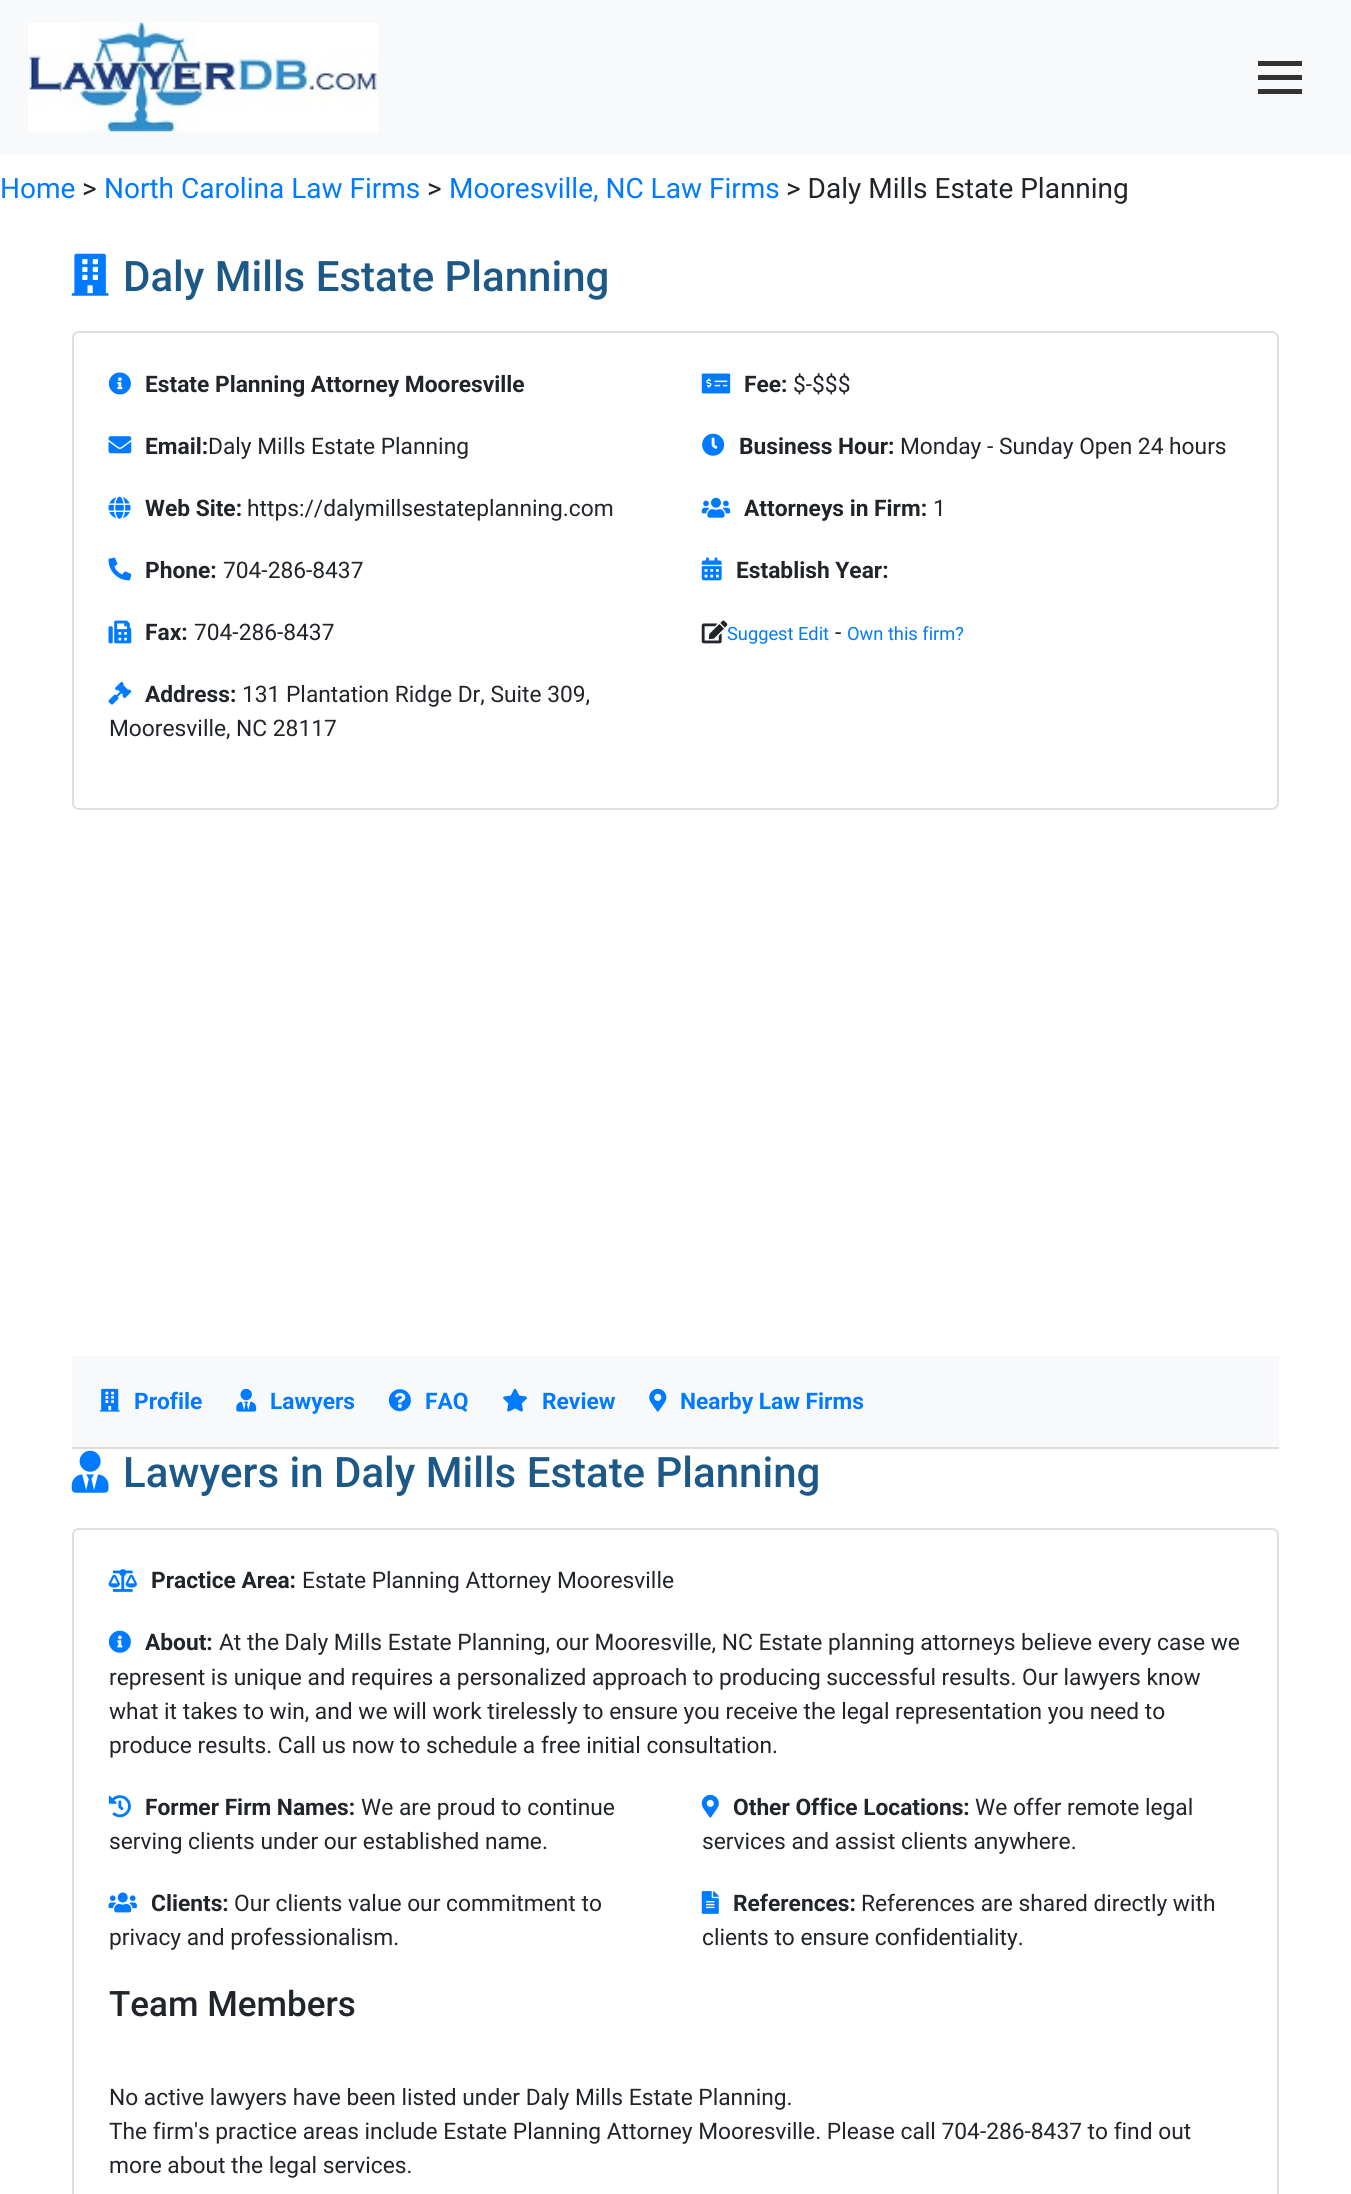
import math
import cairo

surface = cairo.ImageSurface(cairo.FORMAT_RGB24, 1351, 2194)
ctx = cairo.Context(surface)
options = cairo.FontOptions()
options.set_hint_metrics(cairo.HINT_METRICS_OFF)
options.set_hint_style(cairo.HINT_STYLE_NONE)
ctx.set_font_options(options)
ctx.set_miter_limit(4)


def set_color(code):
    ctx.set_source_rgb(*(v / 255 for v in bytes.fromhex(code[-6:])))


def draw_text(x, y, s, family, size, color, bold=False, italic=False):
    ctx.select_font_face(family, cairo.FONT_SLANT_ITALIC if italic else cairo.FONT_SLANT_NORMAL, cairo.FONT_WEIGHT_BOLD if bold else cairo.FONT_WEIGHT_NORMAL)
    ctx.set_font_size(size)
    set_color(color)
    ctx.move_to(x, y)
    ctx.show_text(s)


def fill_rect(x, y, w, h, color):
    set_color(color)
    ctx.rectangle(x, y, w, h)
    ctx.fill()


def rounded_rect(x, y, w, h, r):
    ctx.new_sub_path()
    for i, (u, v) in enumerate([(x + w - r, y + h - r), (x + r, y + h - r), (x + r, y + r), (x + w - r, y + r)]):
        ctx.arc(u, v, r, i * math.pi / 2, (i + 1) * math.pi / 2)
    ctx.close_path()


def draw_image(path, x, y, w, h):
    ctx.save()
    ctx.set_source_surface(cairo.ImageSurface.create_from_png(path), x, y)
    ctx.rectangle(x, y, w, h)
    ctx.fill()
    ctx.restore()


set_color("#ffffff")
ctx.paint()
fill_rect(0, 0, 1351, 154, "#f8f9fa")
draw_image("assets/img1.png", 28, 22, 350, 110)
fill_rect(1258, 61, 44, 5, "#333333")
fill_rect(1258, 75, 44, 5, "#333333")
fill_rect(1258, 89, 44, 5, "#333333")
draw_text(0, 198, "Home", "Roboto", 28, "#007bff")
draw_text(82, 198, ">", "Roboto", 28, "#212529")
draw_text(104, 198, "North Carolina Law Firms", "Roboto", 28, "#007bff")
draw_text(427, 198, ">", "Roboto", 28, "#212529")
draw_text(449, 198, "Mooresville, NC Law Firms", "Roboto", 28, "#007bff")
draw_text(786, 198, "> Daly Mills Estate Planning", "Roboto", 28, "#212529")
draw_image("assets/img2.png", 71, 253, 38, 43)
draw_text(123, 291, "Daly Mills Estate Planning", "Roboto Medium", 42, "#1d5987")
rounded_rect(73, 332, 1205, 477, 6)
set_color("#dfdfdf")
ctx.stroke()
draw_image("assets/img3.png", 108, 372, 23, 23)
draw_text(145, 392, "Estate Planning Attorney Mooresville", "Roboto", 22.75, "#212529", bold=True)
draw_image("assets/img4.png", 108, 436, 24, 18)
draw_text(145, 454, "Email:", "Roboto", 22.75, "#212529", bold=True)
draw_text(208, 454, "Daly Mills Estate Planning", "Roboto", 22.75, "#212529")
draw_image("assets/img5.png", 108, 496, 23, 23)
draw_text(145, 516, "Web Site:", "Roboto", 22.75, "#212529", bold=True)
draw_text(247, 516, "https://dalymillsestateplanning.com", "Roboto", 22.75, "#212529")
draw_image("assets/img6.png", 108, 557, 24, 24)
draw_text(145, 578, "Phone:", "Roboto", 22.75, "#212529", bold=True)
draw_text(223, 578, "704-286-8437", "Roboto", 22.75, "#212529")
draw_image("assets/img7.png", 108, 620, 24, 24)
draw_text(145, 640, "Fax:", "Roboto", 22.75, "#212529", bold=True)
draw_text(194, 640, "704-286-8437", "Roboto", 22.75, "#212529")
draw_image("assets/img8.png", 108, 681, 24, 24)
draw_text(145, 702, "Address:", "Roboto", 22.75, "#212529", bold=True)
draw_text(242, 702, "131 Plantation Ridge Dr, Suite 309,", "Roboto", 22.75, "#212529")
draw_text(109, 736, "Mooresville, NC 28117", "Roboto", 22.75, "#212529")
draw_image("assets/img9.png", 701, 373, 30, 21)
draw_text(744, 392, "Fee:", "Roboto", 22.75, "#212529", bold=True)
draw_text(793, 392, "$-$$$", "Roboto", 22.75, "#212529")
draw_image("assets/img10.png", 702, 433, 23, 23)
draw_text(739, 454, "Business Hour:", "Roboto", 22.75, "#212529", bold=True)
draw_text(900, 454, "Monday - Sunday Open 24 hours", "Roboto", 22.75, "#212529")
draw_image("assets/img11.png", 701, 497, 30, 21)
draw_text(744, 516, "Attorneys in Firm:", "Roboto", 22.75, "#212529", bold=True)
draw_text(933, 516, "1", "Roboto", 22.75, "#212529")
draw_image("assets/img12.png", 701, 557, 21, 24)
draw_text(736, 578, "Establish Year:", "Roboto", 22.75, "#212529", bold=True)
draw_image("assets/img13.png", 701, 620, 27, 24)
draw_text(727, 640, "Suggest Edit", "Roboto", 18.25, "#007bff")
draw_text(835, 640, "-", "Roboto", 22.75, "#212529")
draw_text(847, 640, "Own this firm?", "Roboto", 18.25, "#007bff")
fill_rect(72, 1356, 1207, 91, "#f8f9fa")
fill_rect(72, 1447, 1207, 2, "#dddddd")
draw_image("assets/img14.png", 99, 1388, 21, 24)
draw_text(134, 1409, "Profile", "Roboto", 22.75, "#007bff", bold=True)
draw_image("assets/img15.png", 236, 1388, 21, 24)
draw_text(270, 1409, "Lawyers", "Roboto", 22.75, "#007bff", bold=True)
draw_image("assets/img16.png", 388, 1389, 23, 23)
draw_text(425, 1409, "FAQ", "Roboto", 22.75, "#007bff", bold=True)
draw_image("assets/img17.png", 503, 1388, 24, 24)
draw_text(542, 1409, "Review", "Roboto", 22.75, "#007bff", bold=True)
draw_image("assets/img18.png", 649, 1388, 18, 24)
draw_text(680, 1409, "Nearby Law Firms", "Roboto", 22.75, "#007bff", bold=True)
draw_image("assets/img19.png", 71, 1450, 38, 43)
draw_text(123, 1487, "Lawyers in Daly Mills Estate Planning", "Roboto Medium", 42, "#1d5987")
rounded_rect(73, 1529, 1205, 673, 6)
set_color("#dfdfdf")
ctx.stroke()
draw_image("assets/img20.png", 108, 1569, 29, 23)
draw_text(151, 1588, "Practice Area:", "Roboto", 22.75, "#212529", bold=True)
draw_text(302, 1588, "Estate Planning Attorney Mooresville", "Roboto", 22.75, "#212529")
draw_image("assets/img21.png", 108, 1630, 23, 23)
draw_text(145, 1650, "About:", "Roboto", 22.75, "#212529", bold=True)
draw_text(219, 1650, "At the Daly Mills Estate Planning, our Mooresville, NC Estate planning attorneys believe every case we", "Roboto", 22.75, "#212529")
draw_text(109, 1685, "represent is unique and requires a personalized approach to producing successful results. Our lawyers know", "Roboto", 22.75, "#212529")
draw_text(109, 1719, "what it takes to win, and we will work tirelessly to ensure you receive the legal representation you need to", "Roboto", 22.75, "#212529")
draw_text(109, 1753, "produce results. Call us now to schedule a free initial consultation.", "Roboto", 22.75, "#212529")
draw_image("assets/img22.png", 108, 1795, 23, 23)
draw_text(145, 1815, "Former Firm Names:", "Roboto", 22.75, "#212529", bold=True)
draw_text(361, 1815, "We are proud to continue", "Roboto", 22.75, "#212529")
draw_text(109, 1849, "serving clients under our established name.", "Roboto", 22.75, "#212529")
draw_image("assets/img23.png", 108, 1892, 29, 21)
draw_text(151, 1911, "Clients:", "Roboto", 22.75, "#212529", bold=True)
draw_text(234, 1911, "Our clients value our commitment to", "Roboto", 22.75, "#212529")
draw_text(109, 1945, "privacy and professionalism.", "Roboto", 22.75, "#212529")
draw_image("assets/img24.png", 701, 1794, 18, 24)
draw_text(733, 1815, "Other Office Locations:", "Roboto", 22.75, "#212529", bold=True)
draw_text(975, 1815, "We offer remote legal", "Roboto", 22.75, "#212529")
draw_text(702, 1849, "services and assist clients anywhere.", "Roboto", 22.75, "#212529")
draw_image("assets/img25.png", 701, 1891, 18, 23)
draw_text(733, 1911, "References:", "Roboto", 22.75, "#212529", bold=True)
draw_text(861, 1911, "References are shared directly with", "Roboto", 22.75, "#212529")
draw_text(702, 1945, "clients to ensure confidentiality.", "Roboto", 22.75, "#212529")
draw_text(109, 2016, "Team Members", "Roboto Medium", 35, "#212529")
draw_text(109, 2105, "No active lawyers have been listed under Daly Mills Estate Planning.", "Roboto", 22.75, "#212529")
draw_text(109, 2139, "The firm's practice areas include Estate Planning Attorney Mooresville. Please call 704-286-8437 to find out", "Roboto", 22.75, "#212529")
draw_text(109, 2173, "more about the legal services.", "Roboto", 22.75, "#212529")
surface.write_to_png("output.png")
